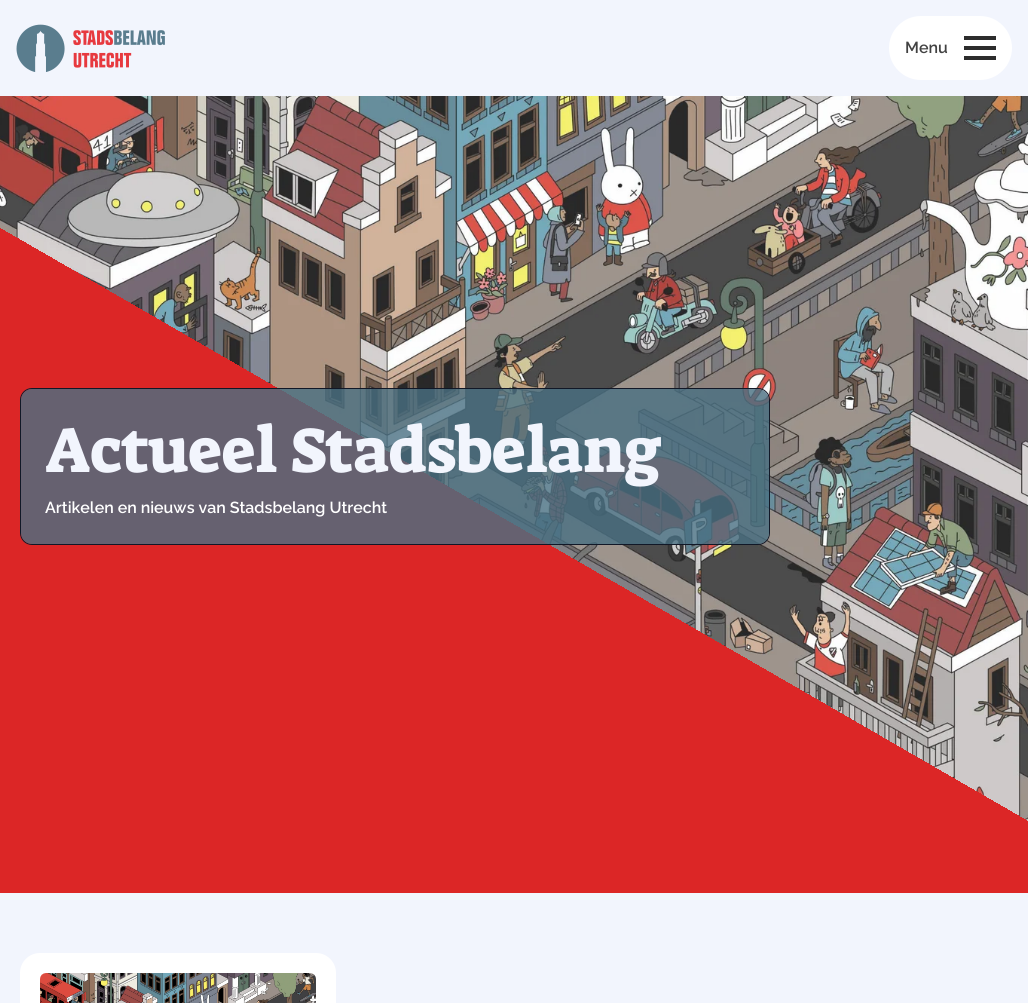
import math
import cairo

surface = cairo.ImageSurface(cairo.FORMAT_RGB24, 1028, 1003)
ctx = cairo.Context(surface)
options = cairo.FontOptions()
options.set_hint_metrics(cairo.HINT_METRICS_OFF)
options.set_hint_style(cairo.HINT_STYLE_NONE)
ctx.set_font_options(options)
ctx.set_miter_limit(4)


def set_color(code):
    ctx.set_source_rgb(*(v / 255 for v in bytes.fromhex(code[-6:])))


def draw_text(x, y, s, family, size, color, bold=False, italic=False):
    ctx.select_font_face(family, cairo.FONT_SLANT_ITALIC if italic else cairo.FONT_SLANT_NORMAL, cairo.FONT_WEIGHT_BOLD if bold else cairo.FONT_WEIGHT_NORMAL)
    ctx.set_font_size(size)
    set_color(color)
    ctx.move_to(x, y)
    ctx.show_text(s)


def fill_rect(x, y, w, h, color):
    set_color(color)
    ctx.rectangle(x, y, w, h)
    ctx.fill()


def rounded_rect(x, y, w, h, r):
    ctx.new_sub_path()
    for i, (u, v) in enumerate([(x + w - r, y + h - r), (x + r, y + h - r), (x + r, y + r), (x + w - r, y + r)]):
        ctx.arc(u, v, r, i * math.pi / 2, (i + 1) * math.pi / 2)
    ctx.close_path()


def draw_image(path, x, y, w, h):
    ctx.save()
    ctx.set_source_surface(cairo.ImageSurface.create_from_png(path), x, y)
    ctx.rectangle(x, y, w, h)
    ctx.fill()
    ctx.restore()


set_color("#f2f5fd")
ctx.paint()
draw_image("assets/img1.png", 16, 24, 149, 48)
set_color("#ffffff")
rounded_rect(889, 16, 123, 64, 32)
ctx.fill()
draw_text(905, 53, "Menu", "Raleway SemiBold", 16, "#424242")
fill_rect(964, 46, 32, 4, "#2d2d2d")
fill_rect(964, 36, 32, 4, "#2d2d2d")
fill_rect(964, 56, 32, 4, "#2d2d2d")
draw_image("assets/img2.png", 0, 96, 1028, 797)
rounded_rect(20.5, 388.5, 749, 156, 11.5)
set_color("#111827")
ctx.set_line_width(1)
ctx.stroke()
ctx.set_source_rgba(0.286, 0.439, 0.51, 0.8)
rounded_rect(21, 389, 748, 155, 11)
ctx.fill()
draw_text(45, 472, "Actueel Stadsbelang", "Suez One", 64, "#f2f5fd")
draw_text(45, 513, "Artikelen en nieuws van Stadsbelang Utrecht", "Raleway SemiBold", 16, "#ffffff")
rounded_rect(20, 953, 316, 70, 20)
ctx.fill()
draw_image("assets/img3.png", 40, 973, 276, 30)
surface.write_to_png("output.png")
